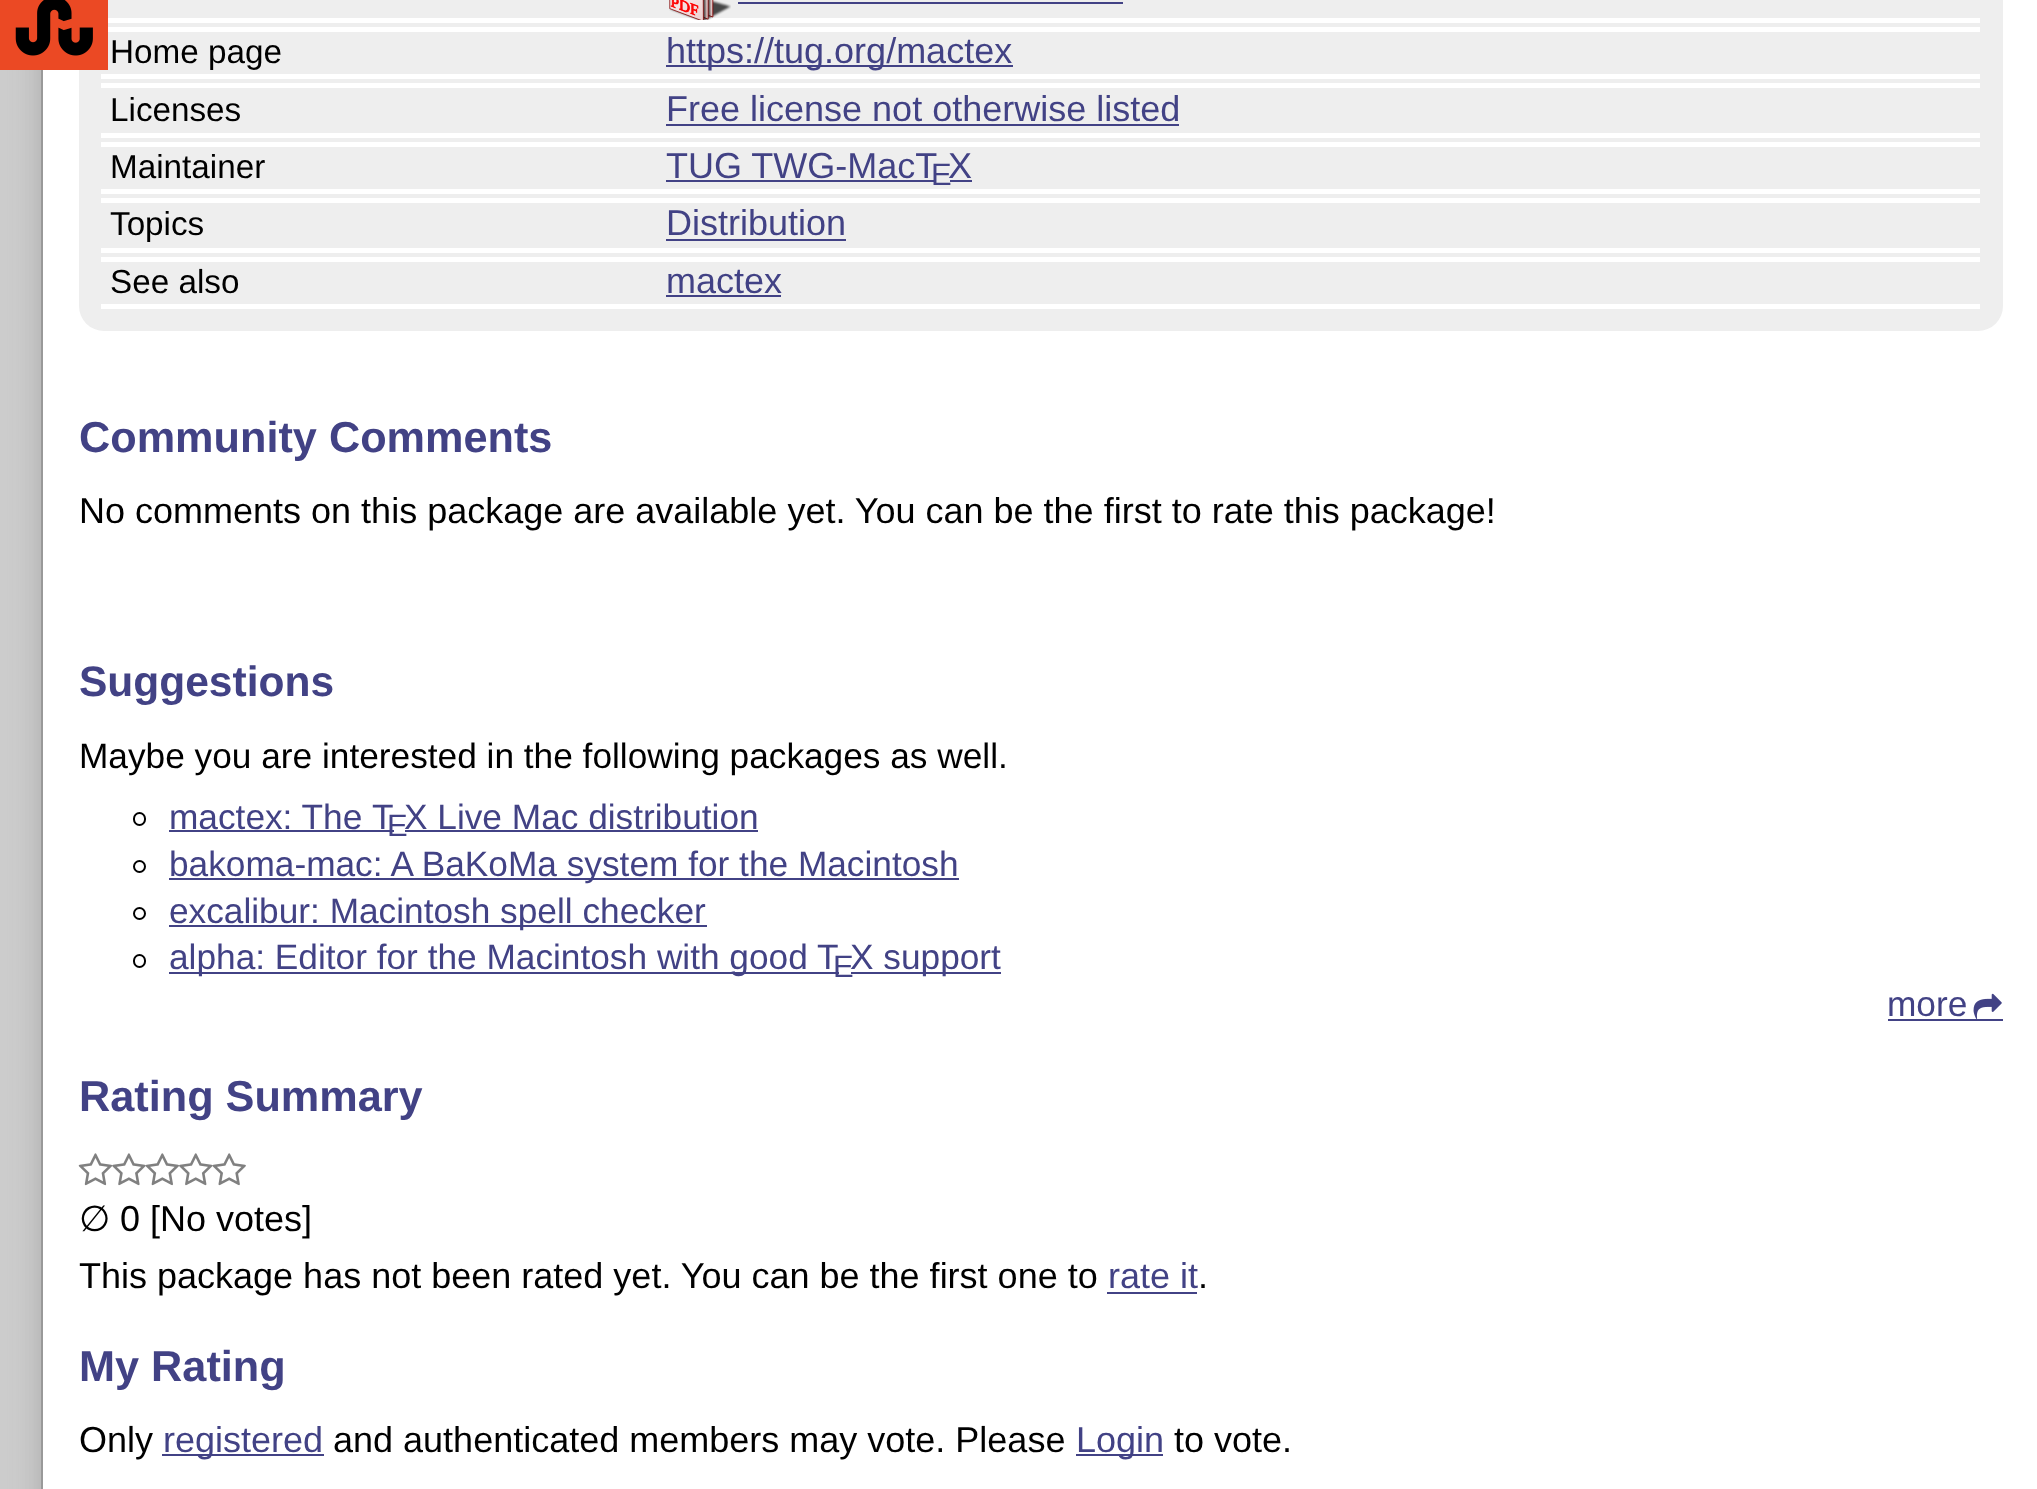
(async () => {
    const canvas = document.querySelector("canvas");
    canvas.width = 2037;
    canvas.height = 1489;
    const context = canvas.getContext("2d");
    context.miterLimit = 4;
    context.fontKerning = "normal";
    function write(s, x, y, font, color) {
        context.font = font;
        context.fillStyle = color;
        context.fillText(s, x, y);
    }
    function block(x, y, w, h, color) {
        context.fillStyle = color;
        context.fillRect(x, y, w, h);
    }
    function card(x, y, w, h, r, color) {
        context.fillStyle = color;
        context.beginPath();
        context.roundRect(x, y, w, h, r);
        context.fill();
    }
    async function photo(src, x, y, w, h) {
        const img = new Image();
        img.src = src;
        await img.decode();
        context.drawImage(img, x, y, w, h);
    }

    block(0, 0, 2037, 1489, "rgb(204, 204, 204)");
    context.fillStyle = "rgb(170, 170, 170)";
    context.filter = "blur(14.5px)";
    context.beginPath();
    context.roundRect(41, -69, 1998, 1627, 25);
    context.fill();
    context.filter = "none";
    block(43, 0, 1994, 1489, "rgb(255, 255, 255)");
    card(79, -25, 1924, 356, 25, "rgb(238, 238, 238)");
    block(101, 18, 1879, 5, "rgb(255, 255, 255)");
    block(101, 27, 1879, 5, "rgb(255, 255, 255)");
    block(0, 0, 108, 70, "rgb(235, 73, 36)");
    await photo("media/1.png", 15, 0, 78, 56);
    block(41, 70, 2, 1419, "rgb(153, 153, 153)");
    await photo("media/2.png", 669, 0, 62, 20);
    block(738, 2, 385, 2, "rgb(66, 66, 133)");
    block(101, 74, 1879, 5, "rgb(255, 255, 255)");
    write("Home page", 110, 63, "33.25px Liberation Sans", "rgb(0, 0, 0)");
    block(666, 65, 347, 2, "rgb(66, 66, 133)");
    write("https://tug.org/mactex", 666, 63, "36px Liberation Sans", "rgb(66, 66, 133)");
    block(101, 83, 1879, 5, "rgb(255, 255, 255)");
    block(101, 133, 1879, 5, "rgb(255, 255, 255)");
    write("Licenses", 110, 121, "33.25px Liberation Sans", "rgb(0, 0, 0)");
    write("Free license not otherwise listed", 666, 121, "36px Liberation Sans", "rgb(66, 66, 133)");
    block(666, 124, 513, 2, "rgb(66, 66, 133)");
    block(101, 142, 1879, 5, "rgb(255, 255, 255)");
    block(101, 189, 1879, 5, "rgb(255, 255, 255)");
    write("Maintainer", 110, 178, "33.25px Liberation Sans", "rgb(0, 0, 0)");
    write("TUG TWG-MacT", 666, 178, "36px Liberation Sans", "rgb(66, 66, 133)");
    block(666, 180, 270, 2, "rgb(66, 66, 133)");
    write("E", 931, 185, "31px Liberation Sans", "rgb(66, 66, 133)");
    write("X", 948, 178, "36px Liberation Sans", "rgb(66, 66, 133)");
    block(950, 180, 22, 2, "rgb(66, 66, 133)");
    block(101, 198, 1879, 5, "rgb(255, 255, 255)");
    block(101, 248, 1879, 5, "rgb(255, 255, 255)");
    write("Topics", 110, 235, "33.25px Liberation Sans", "rgb(0, 0, 0)");
    write("Distribution", 666, 235, "36px Liberation Sans", "rgb(66, 66, 133)");
    block(666, 239, 180, 2, "rgb(66, 66, 133)");
    block(101, 257, 1879, 5, "rgb(255, 255, 255)");
    block(101, 304, 1879, 5, "rgb(255, 255, 255)");
    write("See also", 110, 293, "33.25px Liberation Sans", "rgb(0, 0, 0)");
    write("mactex", 666, 293, "36px Liberation Sans", "rgb(66, 66, 133)");
    block(666, 295, 115, 2, "rgb(66, 66, 133)");
    write("Community Comments", 79, 452, "bold 43.25px Liberation Sans", "rgb(66, 66, 133)");
    write("No comments on this package are available yet. You can be the first to rate this package!", 79, 523, "36px Liberation Sans", "rgb(0, 0, 0)");
    write("Suggestions", 79, 696, "bold 42.5px Liberation Sans", "rgb(66, 66, 133)");
    write("Maybe you are interested in the following packages as well.", 79, 768, "35.25px Liberation Sans", "rgb(0, 0, 0)");
    context.beginPath();
    context.roundRect(134, 813, 11, 12, 5.5);
    context.strokeStyle = "rgb(0, 0, 0)";
    context.lineWidth = 2;
    context.stroke();
    write("mactex: The", 169, 829, "35.25px Liberation Sans", "rgb(66, 66, 133)");
    block(169, 830, 225, 2, "rgb(66, 66, 133)");
    write("T", 372, 829, "35.25px Liberation Sans", "rgb(66, 66, 133)");
    write("E", 387, 836, "31px Liberation Sans", "rgb(66, 66, 133)");
    write("X Live Mac distribution", 404, 829, "35.25px Liberation Sans", "rgb(66, 66, 133)");
    block(405, 830, 353, 2, "rgb(66, 66, 133)");
    context.beginPath();
    context.arc(139.5, 866.5, 5.5, 0, Math.PI * 2);
    context.stroke();
    block(169, 878, 790, 2, "rgb(66, 66, 133)");
    write("bakoma-mac: A BaKoMa system for the Macintosh", 169, 876, "35.25px Liberation Sans", "rgb(66, 66, 133)");
    context.beginPath();
    context.arc(139.5, 913.5, 5.5, 0, Math.PI * 2);
    context.stroke();
    block(169, 925, 538, 2, "rgb(66, 66, 133)");
    write("excalibur: Macintosh spell checker", 169, 923, "35.25px Liberation Sans", "rgb(66, 66, 133)");
    context.beginPath();
    context.roundRect(134, 955, 11, 12, 5.5);
    context.stroke();
    block(169, 972, 670, 2, "rgb(66, 66, 133)");
    write("alpha: Editor for the Macintosh with good", 169, 969, "35.25px Liberation Sans", "rgb(66, 66, 133)");
    write("T", 817, 969, "35.25px Liberation Sans", "rgb(66, 66, 133)");
    write("E", 833, 977, "31px Liberation Sans", "rgb(66, 66, 133)");
    block(851, 972, 150, 2, "rgb(66, 66, 133)");
    write("X support", 850, 969, "35.25px Liberation Sans", "rgb(66, 66, 133)");
    write("more", 1887, 1016, "35.25px Liberation Sans", "rgb(66, 66, 133)");
    block(1888, 1019, 115, 2, "rgb(66, 66, 133)");
    await photo("media/3.png", 1973, 993, 29, 26);
    write("Rating Summary", 79, 1111, "bold 43.25px Liberation Sans", "rgb(66, 66, 133)");
    await photo("media/4.png", 78, 1153, 168, 33);
    write("∅", 79, 1231, "36px DejaVu Sans", "rgb(0, 0, 0)");
    write("0 [No votes]", 120, 1231, "36px Liberation Sans", "rgb(0, 0, 0)");
    write("This package has not been rated yet. You can be the first one to", 79, 1288, "36px Liberation Sans", "rgb(0, 0, 0)");
    write("rate it", 1108, 1288, "36px Liberation Sans", "rgb(66, 66, 133)");
    block(1107, 1292, 90, 2, "rgb(66, 66, 133)");
    write(".", 1198, 1288, "36px Liberation Sans", "rgb(0, 0, 0)");
    write("My Rating", 79, 1381, "bold 43.25px Liberation Sans", "rgb(66, 66, 133)");
    write("Only", 79, 1452, "36px Liberation Sans", "rgb(0, 0, 0)");
    block(162, 1454, 162, 2, "rgb(66, 66, 133)");
    write("registered", 163, 1452, "36px Liberation Sans", "rgb(66, 66, 133)");
    write("and authenticated members may vote. Please", 333, 1452, "36px Liberation Sans", "rgb(0, 0, 0)");
    block(1076, 1454, 87, 2, "rgb(66, 66, 133)");
    write("Login", 1076, 1452, "36px Liberation Sans", "rgb(66, 66, 133)");
    write("to vote.", 1174, 1452, "36px Liberation Sans", "rgb(0, 0, 0)");
})();
